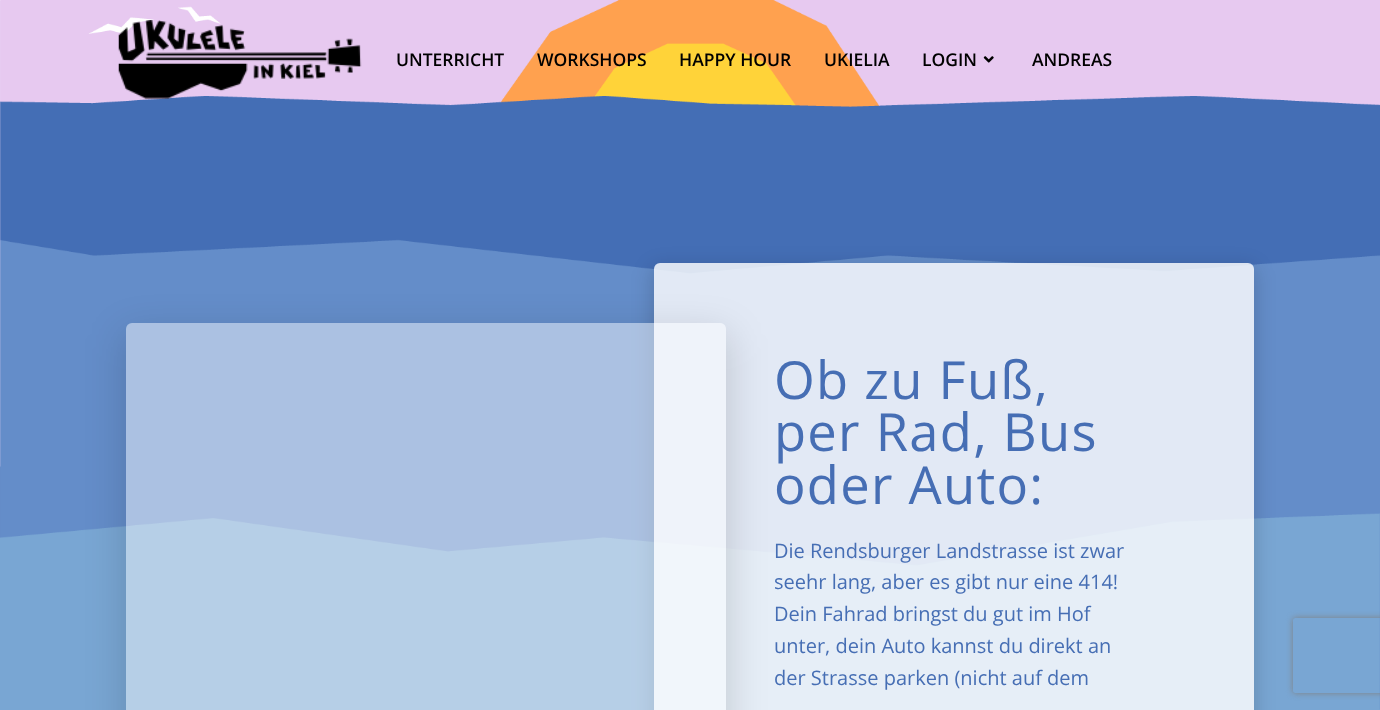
(async () => {
    const canvas = document.querySelector("canvas");
    canvas.width = 1380;
    canvas.height = 710;
    const context = canvas.getContext("2d");
    context.miterLimit = 4;
    context.fontKerning = "normal";
    function write(s, x, y, font, color) {
        context.font = font;
        context.fillStyle = color;
        context.fillText(s, x, y);
    }
    function block(x, y, w, h, color) {
        context.fillStyle = color;
        context.fillRect(x, y, w, h);
    }
    function card(x, y, w, h, r, color) {
        context.fillStyle = color;
        context.beginPath();
        context.roundRect(x, y, w, h, r);
        context.fill();
    }
    async function photo(src, x, y, w, h) {
        const img = new Image();
        img.src = src;
        await img.decode();
        context.drawImage(img, x, y, w, h);
    }

    block(0, 0, 1380, 710, "rgb(255, 255, 255)");
    await photo("media/1.png", 0, 0, 1380, 710);
    await photo("media/4.png", 0, 0, 1380, 710);
    await photo("media/2.png", 118, 20, 244, 79);
    write("UNTERRICHT", 396, 66, "600 17.5px Open Sans", "rgb(0, 0, 0)");
    write("WORKSHOPS", 537, 66, "600 17.5px Open Sans", "rgb(0, 0, 0)");
    write("HAPPY HOUR", 679, 66, "600 17.5px Open Sans", "rgb(0, 0, 0)");
    write("UKIELIA", 824, 66, "600 17.5px Open Sans", "rgb(0, 0, 0)");
    write("LOGIN", 922, 66, "600 17.5px Open Sans", "rgb(0, 0, 0)");
    await photo("media/3.png", 983, 56, 11, 7);
    write("ANDREAS", 1032, 66, "600 17.5px Open Sans", "rgb(0, 0, 0)");
    context.save();
    context.beginPath();
    context.moveTo(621, 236);
    context.lineTo(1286, 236);
    context.lineTo(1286, 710);
    context.lineTo(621, 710);
    context.closePath();
    context.moveTo(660, 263);
    context.lineTo(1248, 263);
    context.bezierCurveTo(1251.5, 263, 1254, 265.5, 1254, 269);
    context.lineTo(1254, 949);
    context.bezierCurveTo(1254, 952.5, 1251.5, 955, 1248, 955);
    context.lineTo(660, 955);
    context.bezierCurveTo(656.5, 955, 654, 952.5, 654, 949);
    context.lineTo(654, 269);
    context.bezierCurveTo(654, 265.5, 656.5, 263, 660, 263);
    context.closePath();
    context.clip("evenodd");
    context.fillStyle = "rgba(0, 0, 0, 0.15)";
    context.filter = "blur(9.5px)";
    context.beginPath();
    context.roundRect(651, 266, 605, 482, 9);
    context.fill();
    context.filter = "none";
    context.restore();
    card(654, 263, 600, 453, 6, "rgba(255, 255, 255, 0.81)");
    context.save();
    context.beginPath();
    context.moveTo(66, 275);
    context.lineTo(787, 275);
    context.lineTo(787, 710);
    context.lineTo(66, 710);
    context.closePath();
    context.moveTo(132, 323);
    context.lineTo(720, 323);
    context.bezierCurveTo(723.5, 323, 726, 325.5, 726, 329);
    context.lineTo(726, 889);
    context.bezierCurveTo(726, 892.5, 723.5, 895, 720, 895);
    context.lineTo(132, 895);
    context.bezierCurveTo(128.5, 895, 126, 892.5, 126, 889);
    context.lineTo(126, 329);
    context.bezierCurveTo(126, 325.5, 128.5, 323, 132, 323);
    context.closePath();
    context.clip("evenodd");
    context.fillStyle = "rgba(0, 0, 0, 0.15)";
    context.filter = "blur(19px)";
    context.beginPath();
    context.roundRect(124, 333, 605, 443, 9);
    context.fill();
    context.filter = "none";
    context.restore();
    card(126, 323, 600, 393, 6, "rgba(255, 255, 255, 0.46)");
    context.letterSpacing = "1.25px";
    write("Ob zu Fuß,", 774, 399, "52.5px Open Sans", "rgb(70, 110, 180)");
    write("per Rad, Bus", 774, 451, "52.5px Open Sans", "rgb(70, 110, 180)");
    write("oder Auto:", 774, 504, "52.5px Open Sans", "rgb(70, 110, 180)");
    context.letterSpacing = "0px";
    write("Die Rendsburger Landstrasse ist zwar", 774, 558, "20px Open Sans", "rgb(70, 110, 180)");
    write("seehr lang, aber es gibt nur eine 414!", 774, 589, "20px Open Sans", "rgb(70, 110, 180)");
    write("Dein Fahrad bringst du gut im Hof", 774, 621, "20px Open Sans", "rgb(70, 110, 180)");
    write("unter, dein Auto kannst du direkt an", 774, 653, "20px Open Sans", "rgb(70, 110, 180)");
    write("der Strasse parken (nicht auf dem", 774, 685, "20px Open Sans", "rgb(70, 110, 180)");
    context.save();
    context.beginPath();
    context.moveTo(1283, 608);
    context.lineTo(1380, 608);
    context.lineTo(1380, 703);
    context.lineTo(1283, 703);
    context.closePath();
    context.moveTo(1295.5, 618);
    context.lineTo(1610.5, 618);
    context.bezierCurveTo(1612, 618, 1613, 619, 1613, 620.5);
    context.lineTo(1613, 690.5);
    context.bezierCurveTo(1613, 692, 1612, 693, 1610.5, 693);
    context.lineTo(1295.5, 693);
    context.bezierCurveTo(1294, 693, 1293, 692, 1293, 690.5);
    context.lineTo(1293, 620.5);
    context.bezierCurveTo(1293, 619, 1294, 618, 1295.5, 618);
    context.closePath();
    context.clip("evenodd");
    context.fillStyle = "rgb(128, 128, 128)";
    context.filter = "blur(3px)";
    context.beginPath();
    context.roundRect(1293, 618, 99, 75, 2.5);
    context.fill();
    context.filter = "none";
    context.restore();
})();
